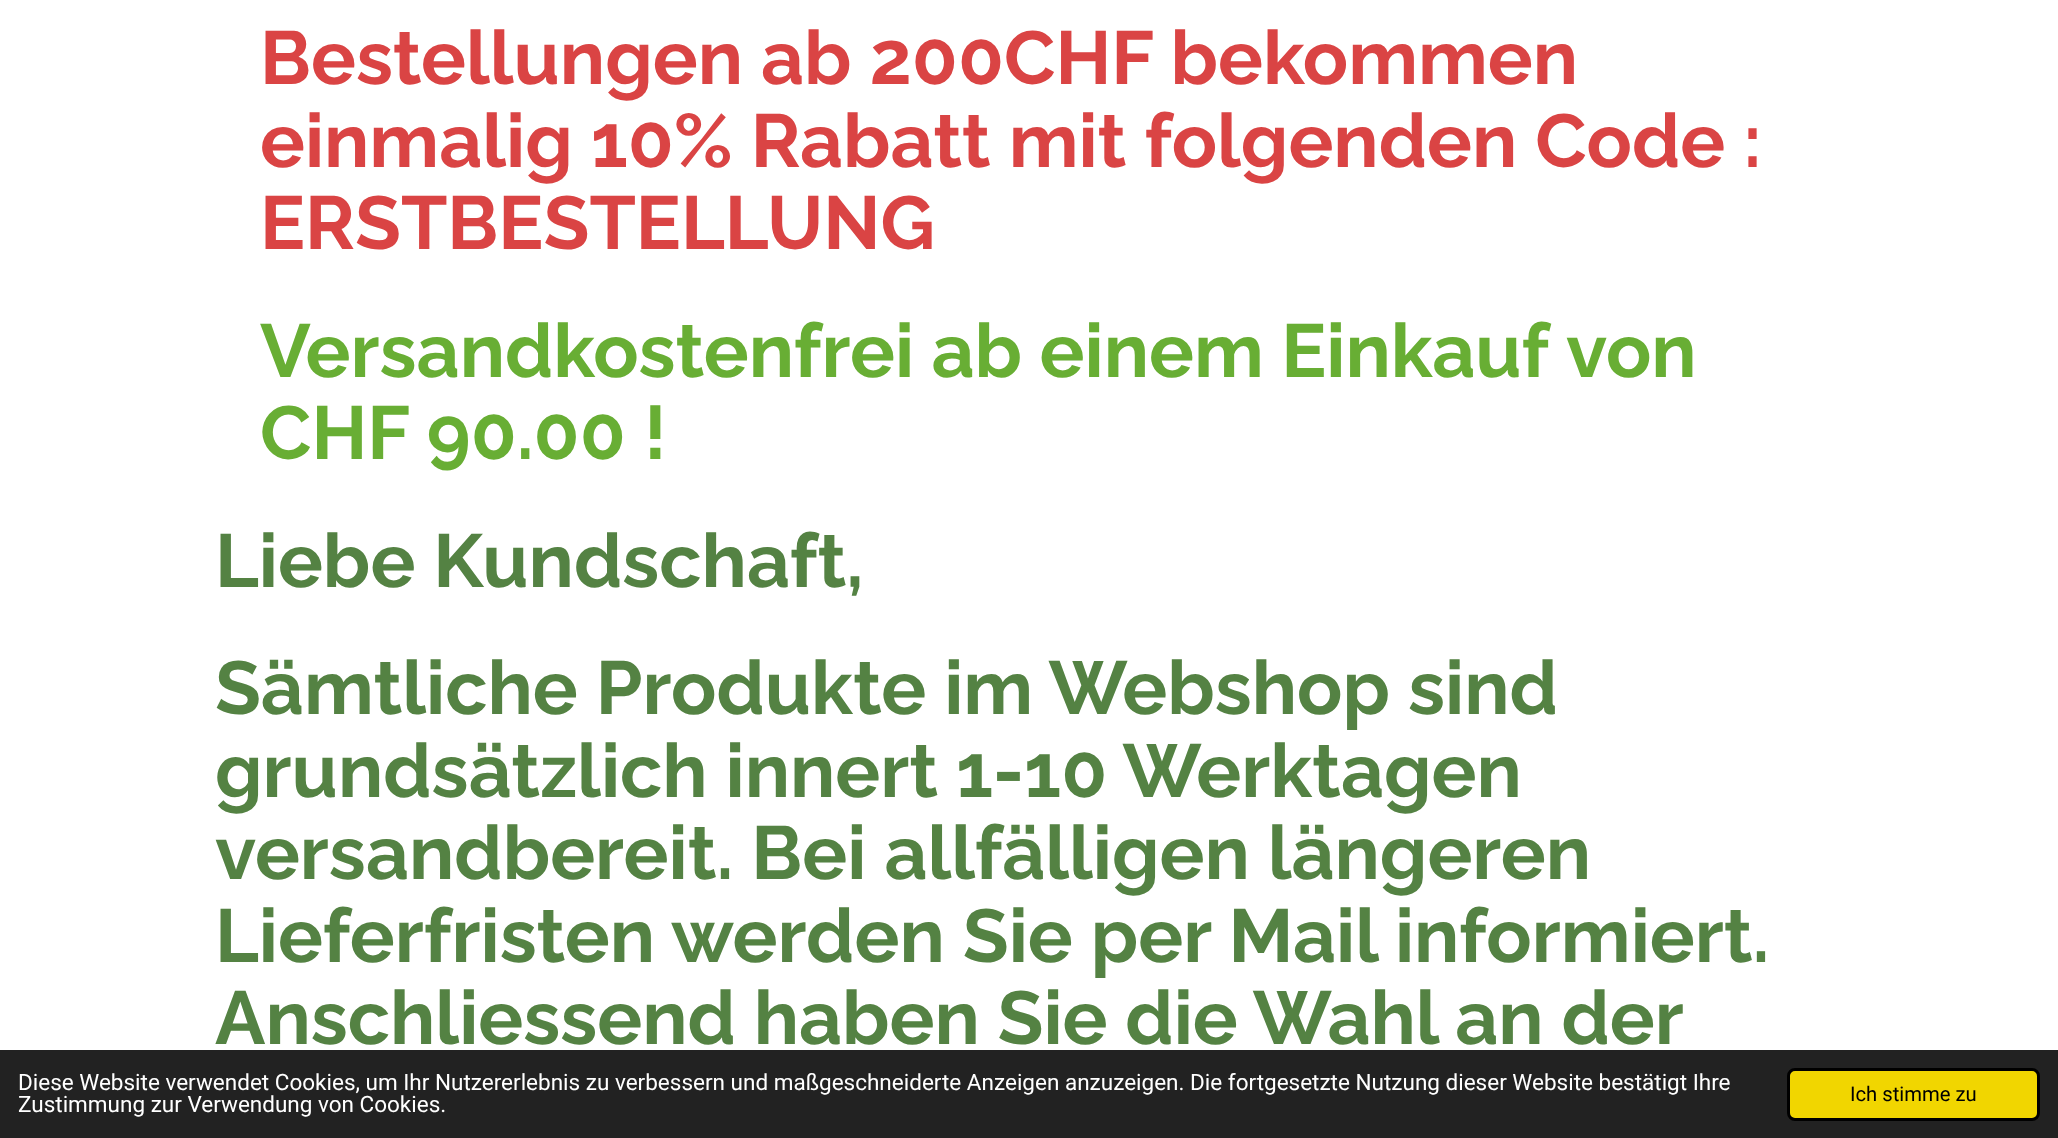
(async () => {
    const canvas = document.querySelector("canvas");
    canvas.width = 2058;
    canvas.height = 1138;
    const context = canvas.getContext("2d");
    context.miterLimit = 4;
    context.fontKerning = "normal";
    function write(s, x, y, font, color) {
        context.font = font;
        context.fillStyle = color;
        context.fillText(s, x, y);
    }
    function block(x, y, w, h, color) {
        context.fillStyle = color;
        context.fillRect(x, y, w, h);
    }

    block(0, 0, 2058, 1138, "rgb(255, 255, 255)");
    write("Bestellungen ab 200CHF bekommen", 260, 84, "bold 75px Raleway", "rgb(218, 68, 68)");
    write("einmalig 10% Rabatt mit folgenden Code :", 260, 167, "bold 75px Raleway", "rgb(218, 68, 68)");
    write("ERSTBESTELLUNG", 260, 249, "bold 75px Raleway", "rgb(218, 68, 68)");
    context.wordSpacing = "-0.5px";
    write("Versandkostenfrei ab einem Einkauf", 260, 377, "bold 75px Raleway", "rgb(104, 174, 52)");
    context.wordSpacing = "0px";
    write("von", 1566, 377, "bold 75px Raleway", "rgb(104, 174, 52)");
    write("CHF 90.00 !", 260, 459, "bold 75px Raleway", "rgb(104, 174, 52)");
    write("Liebe Kundschaft,", 215, 587, "bold 75px Raleway", "rgb(84, 130, 67)");
    write("Sämtliche Produkte im Webshop sind", 215, 714, "bold 75px Raleway", "rgb(84, 130, 67)");
    write("grundsätzlich innert 1-10 Werktagen", 215, 797, "bold 75px Raleway", "rgb(84, 130, 67)");
    write("versandbereit. Bei allfälligen längeren", 215, 879, "bold 75px Raleway", "rgb(84, 130, 67)");
    write("Lieferfristen werden Sie per Mail informiert.", 215, 962, "bold 75px Raleway", "rgb(84, 130, 67)");
    context.wordSpacing = "-0.25px";
    write("Anschliessend haben Sie die Wahl an der", 215, 1044, "bold 75px Raleway", "rgb(84, 130, 67)");
    block(0, 1050, 2058, 88, "rgb(34, 34, 34)");
    context.wordSpacing = "0px";
    write("Diese Website verwendet Cookies, um Ihr Nutzererlebnis zu verbessern und maßgeschneiderte Anzeigen anzuzeigen. Die fortgesetzte Nutzung dieser Website bestätigt Ihre", 18, 1090, "22.5px Roboto", "rgb(255, 255, 255)");
    write("Zustimmung zur Verwendung von Cookies.", 18, 1112, "22.5px Roboto", "rgb(255, 255, 255)");
    context.fillStyle = "rgb(241, 214, 0)";
    context.beginPath();
    context.roundRect(1788.5, 1069.5, 250, 50, 6.5);
    context.fill();
    context.strokeStyle = "rgb(0, 0, 0)";
    context.lineWidth = 3;
    context.stroke();
    write("Ich stimme zu", 1850, 1101, "20.25px Roboto", "rgb(0, 0, 0)");
})();
